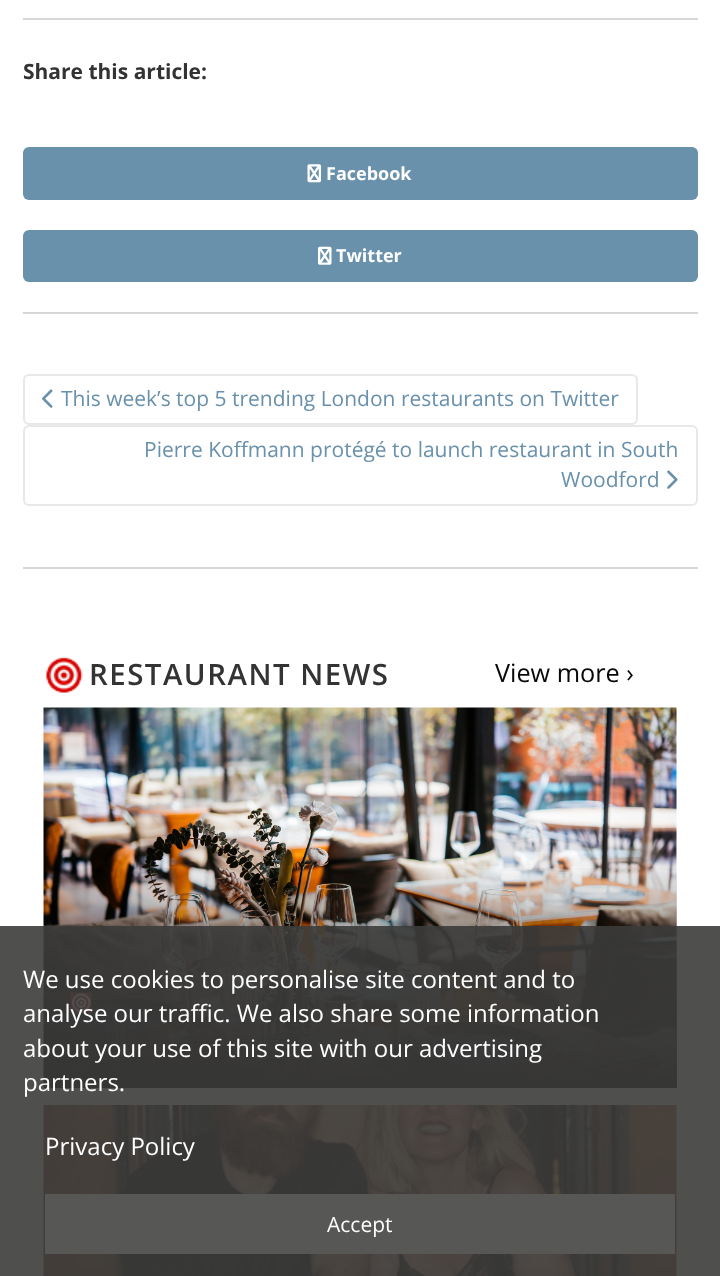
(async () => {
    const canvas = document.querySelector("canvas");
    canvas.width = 720;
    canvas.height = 1276;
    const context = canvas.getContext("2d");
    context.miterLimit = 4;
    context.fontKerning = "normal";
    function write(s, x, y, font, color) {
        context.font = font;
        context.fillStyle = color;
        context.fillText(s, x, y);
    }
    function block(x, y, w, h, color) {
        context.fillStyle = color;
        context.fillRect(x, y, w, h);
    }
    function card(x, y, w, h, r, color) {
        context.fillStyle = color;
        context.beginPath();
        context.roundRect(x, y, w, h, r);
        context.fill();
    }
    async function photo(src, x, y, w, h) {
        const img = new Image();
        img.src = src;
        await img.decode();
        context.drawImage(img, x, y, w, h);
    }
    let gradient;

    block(0, 0, 720, 1276, "rgb(255, 255, 255)");
    block(23, 18, 675, 2, "rgb(215, 215, 215)");
    write("Share this article:", 23, 79, "bold 21px Open Sans", "rgb(51, 51, 51)");
    card(23, 147, 675, 53, 6, "rgb(105, 145, 172)");
    await photo("media/1.png", 307, 164, 14, 19);
    write("Facebook", 326, 180, "bold 18px Open Sans", "rgb(255, 255, 255)");
    card(23, 230, 675, 52, 6, "rgb(105, 145, 172)");
    await photo("media/2.png", 318, 246, 14, 19);
    write("Twitter", 336, 262, "bold 18px Open Sans", "rgb(255, 255, 255)");
    block(23, 312, 675, 2, "rgb(215, 215, 215)");
    context.beginPath();
    context.roundRect(24, 375, 613, 49, 5);
    context.strokeStyle = "rgb(232, 232, 232)";
    context.lineWidth = 2;
    context.stroke();
    await photo("media/3.png", 42, 389, 11, 19);
    write("This week’s top 5 trending London restaurants on Twitter", 61, 406, "21px Open Sans", "rgb(105, 145, 172)");
    context.beginPath();
    context.roundRect(24, 426, 673, 79, 5);
    context.stroke();
    write("Pierre Koffmann protégé to launch restaurant in South", 144, 457, "21px Open Sans", "rgb(105, 145, 172)");
    write("Woodford", 561, 487, "21px Open Sans", "rgb(105, 145, 172)");
    await photo("media/4.png", 667, 470, 11, 19);
    block(23, 567, 675, 2, "rgb(215, 215, 215)");
    await photo("media/5.png", 46, 657, 37, 36);
    context.letterSpacing = "1.5px";
    write("RESTAURANT NEWS", 89, 685, "600 29.4px Open Sans", "rgb(51, 51, 51)");
    context.letterSpacing = "0px";
    write("View more ›", 495, 682, "25.25px Open Sans", "rgb(8, 8, 8)");
    await photo("media/6.png", 43, 707, 634, 380);
    gradient = context.createLinearGradient(360, 863, 360, 1088);
    gradient.addColorStop(0, "rgba(0, 0, 0, 0)");
    gradient.addColorStop(1, "rgb(0, 0, 0)");
    context.fillStyle = gradient;
    context.fillRect(44, 868, 633, 220);
    await photo("media/7.png", 70, 992, 22, 22);
    await photo("media/8.png", 43, 1105, 634, 171);
    gradient = context.createLinearGradient(360, 1262, 360, 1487);
    gradient.addColorStop(0, "rgba(0, 0, 0, 0)");
    gradient.addColorStop(1, "rgb(0, 0, 0)");
    context.fillStyle = gradient;
    context.fillRect(44, 1267, 633, 9);
    block(0, 926, 720, 350, "rgba(60, 60, 59, 0.9)");
    write("We use cookies to personalise site content and to", 23, 988, "24px Open Sans", "rgb(255, 255, 255)");
    write("analyse our traffic. We also share some information", 23, 1022, "24px Open Sans", "rgb(255, 255, 255)");
    write("about your use of this site with our advertising", 23, 1057, "24px Open Sans", "rgb(255, 255, 255)");
    write("partners.", 23, 1091, "24px Open Sans", "rgb(255, 255, 255)");
    write("Privacy Policy", 45, 1155, "24px Open Sans", "rgb(255, 255, 255)");
    block(45, 1194, 630, 60, "rgb(87, 87, 85)");
    write("Accept", 327, 1232, "21px Open Sans", "rgb(255, 255, 255)");
})();
